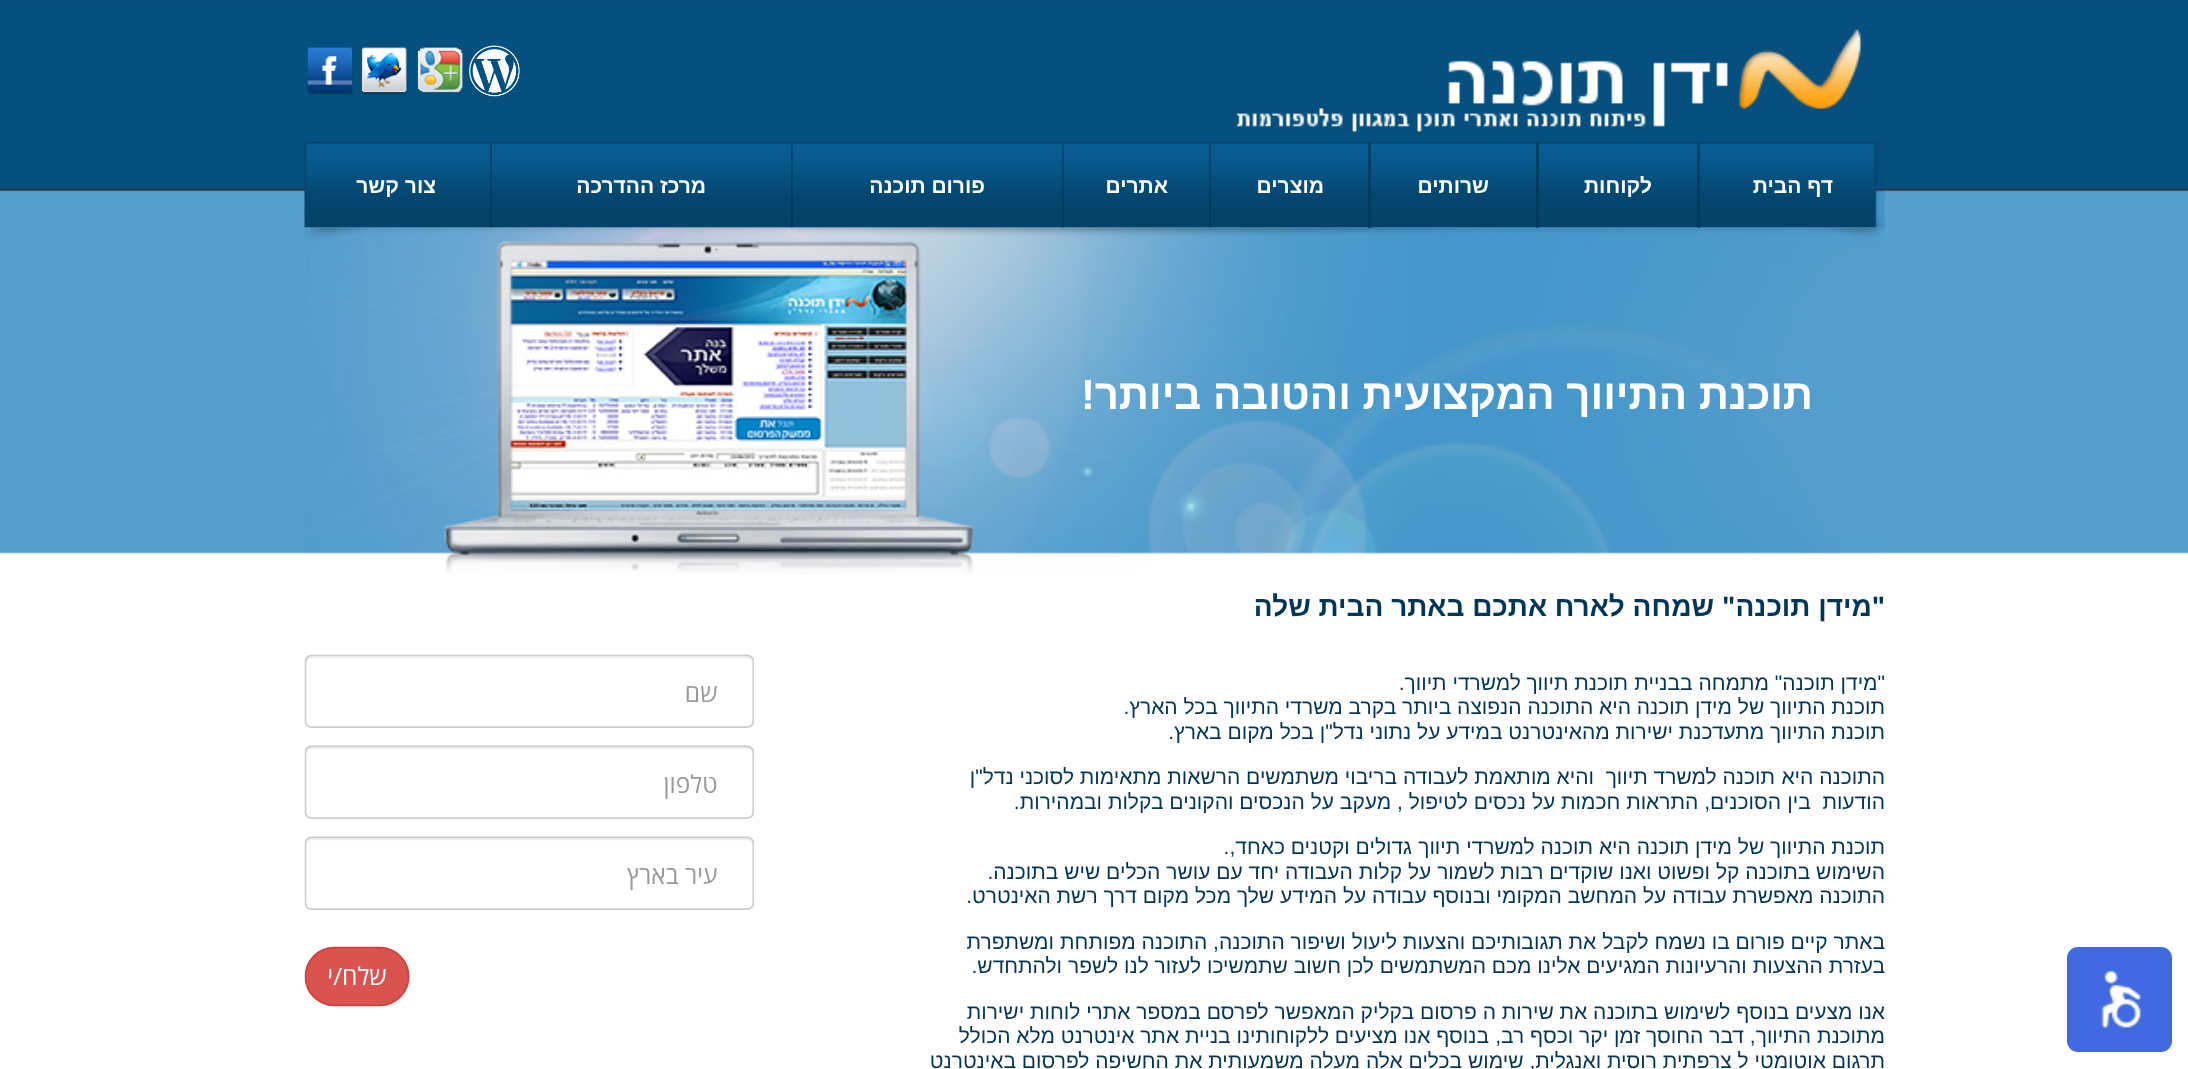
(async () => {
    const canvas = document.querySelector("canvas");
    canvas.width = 2188;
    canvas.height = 1069;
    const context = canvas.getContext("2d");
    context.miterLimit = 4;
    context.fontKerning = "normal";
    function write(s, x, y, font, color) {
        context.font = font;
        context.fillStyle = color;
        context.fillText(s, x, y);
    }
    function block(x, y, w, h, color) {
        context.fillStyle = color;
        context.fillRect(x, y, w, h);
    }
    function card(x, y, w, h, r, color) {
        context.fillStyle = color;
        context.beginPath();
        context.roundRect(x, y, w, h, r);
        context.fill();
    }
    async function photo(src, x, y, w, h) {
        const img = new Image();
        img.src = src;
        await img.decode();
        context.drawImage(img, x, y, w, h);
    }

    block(0, 0, 2188, 1069, "rgb(255, 255, 255)");
    await photo("media/1.png", 0, 0, 2188, 554);
    await photo("media/2.png", 1236, 29, 627, 103);
    await photo("media/3.png", 469, 45, 51, 52);
    await photo("media/4.png", 417, 47, 46, 46);
    await photo("media/5.png", 361, 47, 46, 48);
    await photo("media/6.png", 307, 47, 46, 48);
    await photo("media/7.png", 304, 141, 1581, 87);
    context.direction = "rtl";
    write("דף הבית", 1833, 193, "bold 21px Liberation Sans", "rgb(255, 255, 255)");
    await photo("media/12.png", 304, 227, 1581, 347);
    block(1697, 143, 3, 85, "rgba(2, 51, 84, 0.63)");
    write("לקוחות", 1652, 193, "bold 21px Liberation Sans", "rgb(255, 255, 255)");
    block(1536, 143, 3, 85, "rgba(2, 51, 84, 0.63)");
    write("שרותים", 1489, 193, "bold 21px Liberation Sans", "rgb(255, 255, 255)");
    block(1368, 143, 3, 85, "rgba(2, 51, 84, 0.63)");
    write("מוצרים", 1324, 193, "bold 21px Liberation Sans", "rgb(255, 255, 255)");
    await photo("media/8.png", 1209, 143, 2, 85);
    write("אתרים", 1168, 193, "bold 21px Liberation Sans", "rgb(255, 255, 255)");
    await photo("media/9.png", 1062, 143, 2, 85);
    write("פורום תוכנה", 985, 193, "bold 21px Liberation Sans", "rgb(255, 255, 255)");
    await photo("media/10.png", 791, 143, 2, 85);
    write("מרכז ההדרכה", 706, 193, "bold 21px Liberation Sans", "rgb(255, 255, 255)");
    await photo("media/11.png", 490, 143, 2, 85);
    write("צור קשר", 436, 193, "bold 21px Liberation Sans", "rgb(255, 255, 255)");
    write("תוכנת התיווך המקצועית והטובה ביותר", 1813, 409, "bold 42px Liberation Sans", "rgb(255, 255, 255)");
    context.direction = "ltr";
    write("!", 1081, 409, "bold 42px Liberation Sans", "rgb(255, 255, 255)");
    card(2067, 947, 105, 105, 11, "rgb(65, 105, 225)");
    await photo("media/13.png", 2101, 970, 40, 58);
    context.direction = "rtl";
    write("\"מידן תוכנה\"", 1885, 616, "bold 28px Liberation Sans", "rgb(3, 54, 86)");
    write("שמחה לארח אתכם באתר הבית שלה", 1714, 616, "bold 28px Liberation Sans", "rgb(3, 54, 86)");
    write("\"מידן תוכנה\" מתמחה בבניית", 1885, 690, "21px Liberation Sans", "rgb(3, 54, 86)");
    write("תוכנת תיווך", 1628, 690, "21px Liberation Sans", "rgb(3, 54, 86)");
    write("למשרדי תיווך.", 1521, 690, "21px Liberation Sans", "rgb(3, 54, 86)");
    write("תוכנת התיווך של מידן תוכנה", 1885, 714, "21px Liberation Sans", "rgb(3, 54, 86)");
    write("היא התוכנה הנפוצה ביותר בקרב משרדי התיווך בכל הארץ.", 1631, 714, "21px Liberation Sans", "rgb(3, 54, 86)");
    write("תוכנת התיווך מתעדכנת ישירות מהאינטרנט במידע על נתוני נדל\"ן בכל מקום בארץ.", 1885, 739, "21px Liberation Sans", "rgb(3, 54, 86)");
    write("התוכנה היא", 1885, 784, "21px Liberation Sans", "rgb(3, 54, 86)");
    write("תוכנה למשרד תיווך", 1775, 784, "21px Liberation Sans", "rgb(3, 54, 86)");
    write("והיא מותאמת לעבודה בריבוי משתמשים הרשאות מתאימות לסוכני נדל\"ן", 1594, 784, "21px Liberation Sans", "rgb(3, 54, 86)");
    write("הודעות  בין", 1885, 809, "21px Liberation Sans", "rgb(3, 54, 86)");
    write("הסוכנים, התראות חכמות על נכסים לטיפול , מעקב על הנכסים והקונים בקלות ובמהירות.", 1781, 809, "21px Liberation Sans", "rgb(3, 54, 86)");
    write("תוכנת התיווך של מידן תוכנה היא", 1885, 854, "21px Liberation Sans", "rgb(3, 54, 86)");
    write("תוכנה למשרדי תיווך", 1593, 854, "21px Liberation Sans", "rgb(3, 54, 86)");
    write("גדולים וקטנים כאחד,.", 1412, 854, "21px Liberation Sans", "rgb(3, 54, 86)");
    write("השימוש בתוכנה קל ופשוט ואנו שוקדים רבות לשמור על קלות העבודה יחד עם עושר הכלים שיש בתוכנה.", 1885, 879, "21px Liberation Sans", "rgb(3, 54, 86)");
    write("התוכנה מאפשרת עבודה על המחשב המקומי ובנוסף עבודה על המידע שלך מכל מקום דרך רשת האינטרט.", 1885, 903, "21px Liberation Sans", "rgb(3, 54, 86)");
    write("באתר קיים פורום בו נשמח לקבל את תגובותיכם והצעות ליעול ושיפור התוכנה, התוכנה מפותחת", 1885, 949, "21px Liberation Sans", "rgb(3, 54, 86)");
    write("ומשתפרת", 1054, 949, "21px Liberation Sans", "rgb(3, 54, 86)");
    write("בעזרת ההצעות והרעיונות המגיעים אלינו מכם המשתמשים לכן חשוב שתמשיכו לעזור לנו לשפר ולהתחדש.", 1885, 973, "21px Liberation Sans", "rgb(3, 54, 86)");
    write("אנו מצעים בנוסף לשימוש בתוכנה את שירות ה פרסום בקליק המאפשר לפרסם במספר אתרי לוחות ישירות", 1885, 1019, "21px Liberation Sans", "rgb(3, 54, 86)");
    write("מתוכנת התיווך, דבר החוסך זמן יקר וכסף רב,", 1885, 1043, "21px Liberation Sans", "rgb(3, 54, 86)");
    write("בנוסף אנו מציעים ללקוחותינו בניית אתר אינטרנט מלא הכולל", 1489, 1043, "21px Liberation Sans", "rgb(3, 54, 86)");
    write("תרגום אוטומטי ל צרפתית רוסית ואנגלית, שימוש בכלים אלה", 1885, 1068, "21px Liberation Sans", "rgb(3, 54, 86)");
    write("מעלה משמעותית את החשיפה לפרסום באינטרנט", 1360, 1068, "21px Liberation Sans", "rgb(3, 54, 86)");
    await photo("media/14.png", 304, 654, 450, 353);
})();
